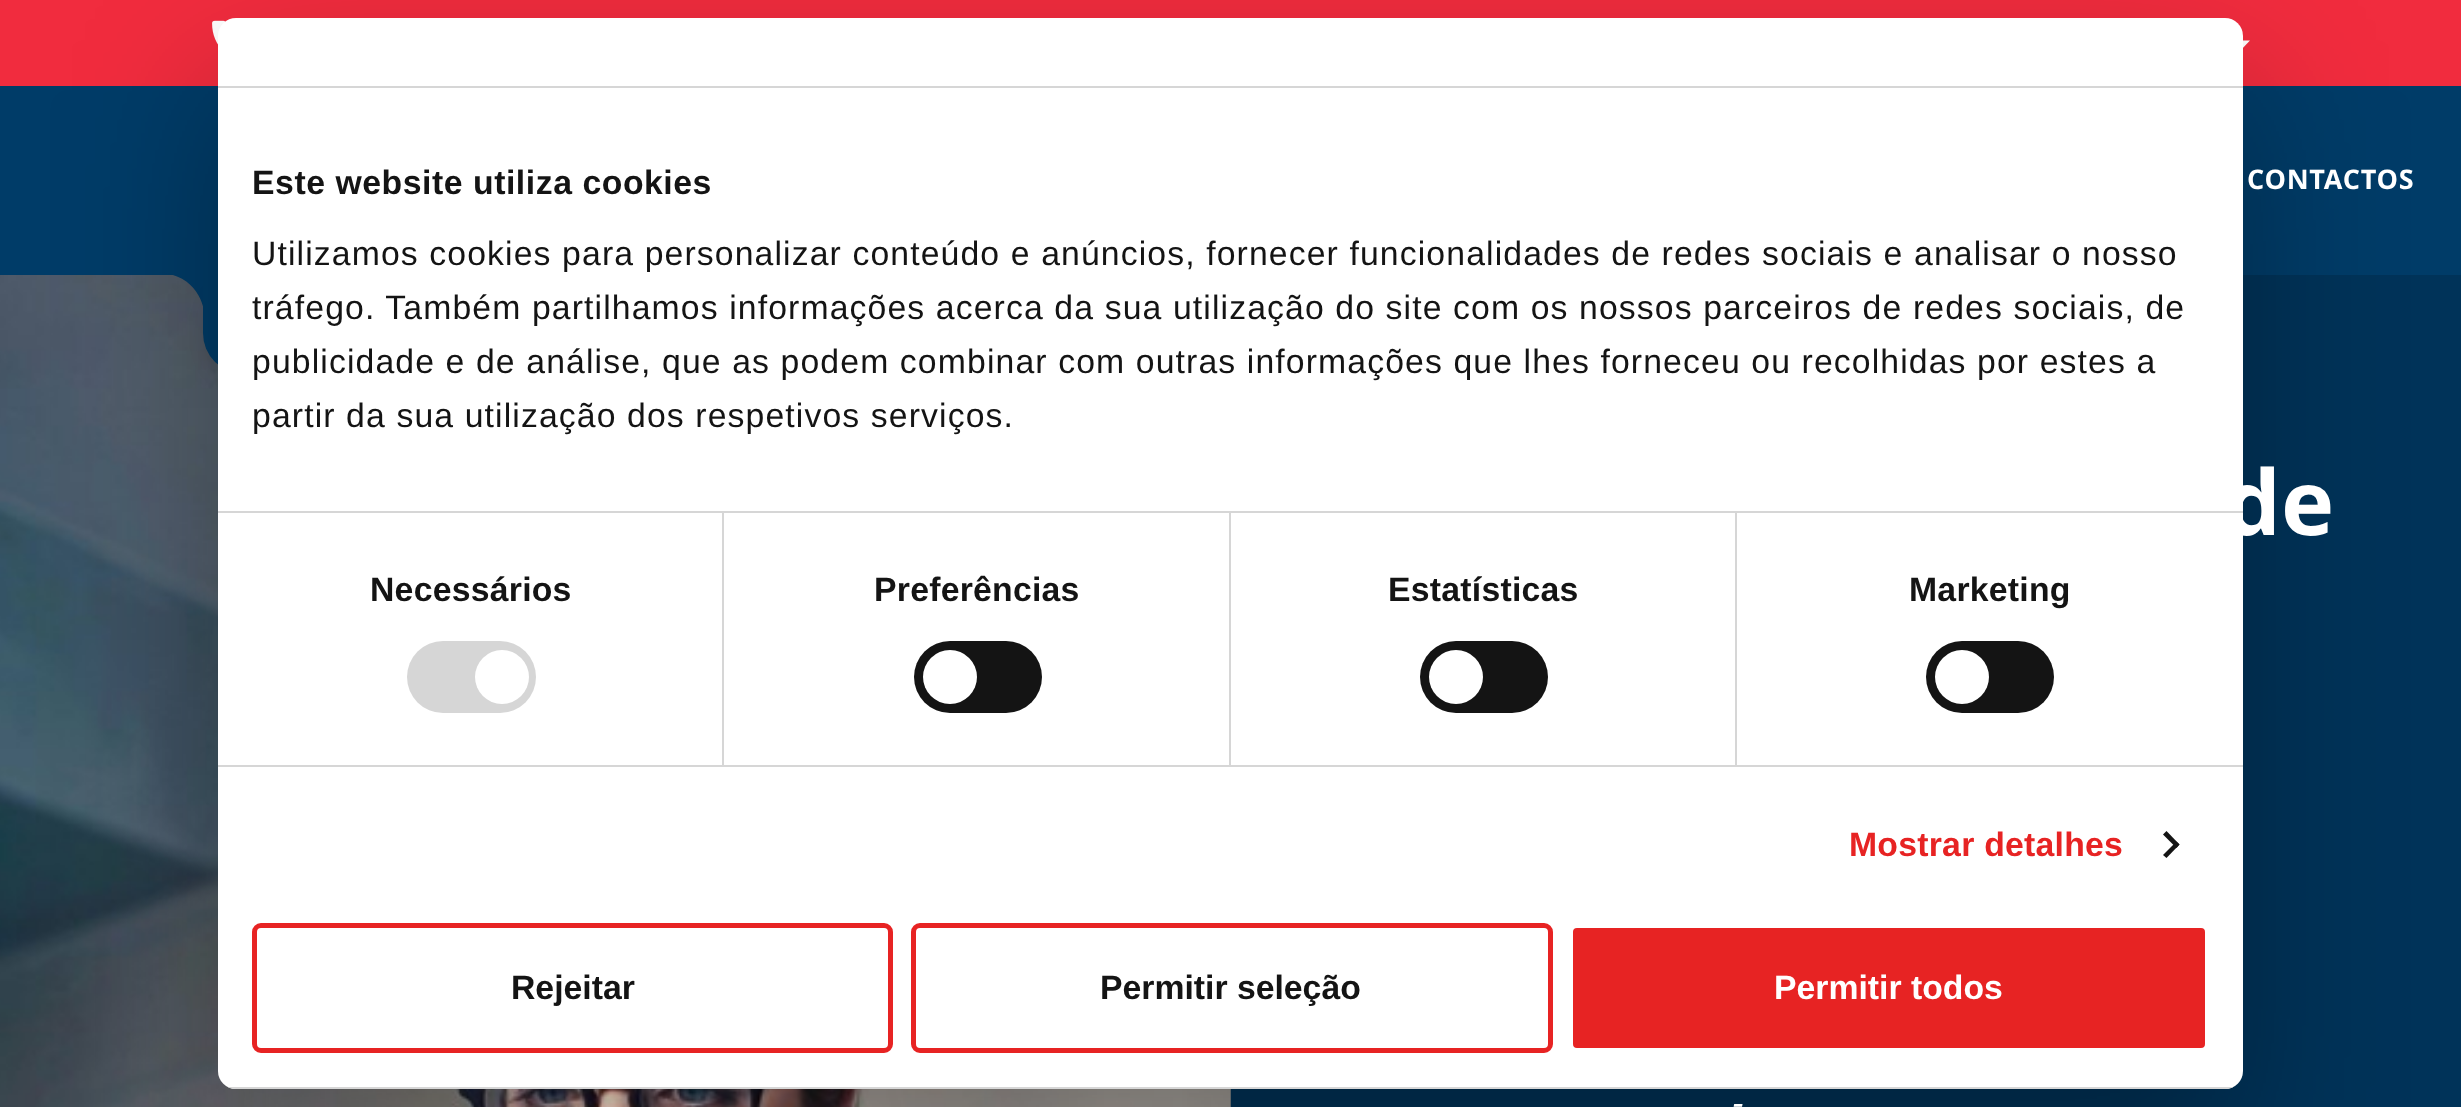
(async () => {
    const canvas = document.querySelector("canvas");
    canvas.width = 2461;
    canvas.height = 1107;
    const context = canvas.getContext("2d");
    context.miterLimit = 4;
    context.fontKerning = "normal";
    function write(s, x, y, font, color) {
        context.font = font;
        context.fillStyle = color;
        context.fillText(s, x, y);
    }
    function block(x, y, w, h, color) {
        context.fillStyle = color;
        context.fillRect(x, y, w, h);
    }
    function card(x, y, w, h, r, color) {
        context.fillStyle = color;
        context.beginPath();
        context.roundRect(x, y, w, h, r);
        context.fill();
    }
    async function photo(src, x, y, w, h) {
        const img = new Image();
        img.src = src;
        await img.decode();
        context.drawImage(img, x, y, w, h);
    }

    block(0, 0, 2461, 1107, "rgb(0, 51, 89)");
    block(0, 0, 2461, 86, "rgb(241, 44, 62)");
    await photo("media/1.png", 212, 20, 14, 25);
    context.fillStyle = "rgb(255, 255, 255)";
    context.beginPath();
    context.moveTo(2227.5, 40.5);
    context.lineTo(2250, 40.5);
    context.lineTo(2239, 52);
    context.closePath();
    context.fill();
    block(0, 86, 2461, 189, "rgb(0, 60, 104)");
    await photo("media/2.png", 0, 275, 1231, 832);
    context.save();
    context.beginPath();
    context.rect(158, 272, 47, 43);
    context.clip();
    context.beginPath();
    context.moveTo(153, 272);
    context.lineTo(205, 272);
    context.lineTo(205, 317);
    context.bezierCurveTo(205, 317, 204, 272, 153, 272);
    context.closePath();
    context.fill();
    context.restore();
    context.fillStyle = "rgba(0, 0, 0, 0.2)";
    context.filter = "blur(11px)";
    context.beginPath();
    context.roundRect(212, 290, 391, 84, 32);
    context.fill();
    context.filter = "none";
    context.fillStyle = "rgb(0, 60, 104)";
    context.beginPath();
    context.roundRect(203, 272, 409, 102, [0, 0, 41, 41]);
    context.fill();
    context.fillStyle = "rgba(0, 0, 0, 0.3)";
    context.filter = "blur(76.5px)";
    context.beginPath();
    context.roundRect(218, 90, 2025, 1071, 18);
    context.fill();
    context.filter = "none";
    card(218, 18, 2025, 1071, 18, "rgb(255, 255, 255)");
    block(218, 86, 2025, 2, "rgb(214, 214, 214)");
    write("de", 2224, 535, "bold 90px Noto Sans", "rgb(255, 255, 255)");
    block(218, 511, 2025, 2, "rgb(214, 214, 214)");
    context.letterSpacing = "0.55px";
    write("Este website utiliza cookies", 252, 194, "bold 33.75px Liberation Sans", "rgb(20, 20, 20)");
    context.letterSpacing = "1.12px";
    write("Utilizamos cookies para personalizar conteúdo e anúncios, fornecer funcionalidades de redes sociais e analisar o nosso", 252, 265, "33.75px Liberation Sans", "rgb(20, 20, 20)");
    write("tráfego. Também partilhamos informações acerca da sua utilização do site com os nossos parceiros de redes sociais, de", 252, 319, "33.75px Liberation Sans", "rgb(20, 20, 20)");
    write("publicidade e de análise, que as podem combinar com outras informações que lhes forneceu ou recolhidas por estes a", 252, 373, "33.75px Liberation Sans", "rgb(20, 20, 20)");
    write("partir da sua utilização dos respetivos serviços.", 252, 427, "33.75px Liberation Sans", "rgb(20, 20, 20)");
    block(218, 765, 2025, 2, "rgb(214, 214, 214)");
    block(722, 513, 2, 252, "rgb(214, 214, 214)");
    context.letterSpacing = "0.25px";
    write("Necessários", 370, 601, "bold 33.75px Liberation Sans", "rgb(20, 20, 20)");
    card(407, 641, 129, 72, 36, "rgb(214, 214, 214)");
    context.fillStyle = "rgb(255, 255, 255)";
    context.beginPath();
    context.arc(502, 677, 27, 0, Math.PI * 2);
    context.fill();
    block(1229, 513, 2, 252, "rgb(214, 214, 214)");
    write("Preferências", 874, 601, "bold 33.75px Liberation Sans", "rgb(20, 20, 20)");
    card(914, 641, 128, 72, 36, "rgb(20, 20, 20)");
    context.fillStyle = "rgb(255, 255, 255)";
    context.beginPath();
    context.arc(950, 677, 27, 0, Math.PI * 2);
    context.fill();
    block(1735, 513, 2, 252, "rgb(214, 214, 214)");
    write("Estatísticas", 1388, 601, "bold 33.75px Liberation Sans", "rgb(20, 20, 20)");
    card(1420, 641, 128, 72, 36, "rgb(20, 20, 20)");
    context.fillStyle = "rgb(255, 255, 255)";
    context.beginPath();
    context.arc(1456, 677, 27, 0, Math.PI * 2);
    context.fill();
    write("Marketing", 1909, 601, "bold 33.75px Liberation Sans", "rgb(20, 20, 20)");
    card(1926, 641, 128, 72, 36, "rgb(20, 20, 20)");
    context.fillStyle = "rgb(255, 255, 255)";
    context.beginPath();
    context.arc(1962, 677, 27, 0, Math.PI * 2);
    context.fill();
    write("Mostrar detalhes", 1849, 856, "bold 33.75px Liberation Sans", "rgb(231, 35, 35)");
    context.fillStyle = "rgb(20, 20, 20)";
    context.beginPath();
    context.moveTo(2166.5, 831);
    context.lineTo(2179.5, 844.5);
    context.lineTo(2176.5, 848);
    context.lineTo(2163, 834.5);
    context.closePath();
    context.fill();
    context.beginPath();
    context.moveTo(2176.5, 841.5);
    context.lineTo(2179.5, 844.5);
    context.lineTo(2166.5, 858);
    context.lineTo(2163, 855);
    context.closePath();
    context.fill();
    context.save();
    context.beginPath();
    context.roundRect(218, 18, 2025, 1071, 18);
    context.clip();
    block(228, 1087, 2005, 2, "rgb(214, 214, 214)");
    context.restore();
    context.beginPath();
    context.roundRect(254.5, 925.5, 636, 125, 6.5);
    context.strokeStyle = "rgb(231, 35, 35)";
    context.lineWidth = 5;
    context.stroke();
    context.letterSpacing = "0px";
    write("Rejeitar", 511, 999, "bold 33.75px Liberation Sans", "rgb(20, 20, 20)");
    context.beginPath();
    context.roundRect(913.5, 925.5, 637, 125, 6.5);
    context.stroke();
    write("Permitir seleção", 1100, 999, "bold 33.75px Liberation Sans", "rgb(20, 20, 20)");
    context.fillStyle = "rgb(231, 35, 35)";
    context.beginPath();
    context.roundRect(1570.5, 925.5, 637, 125, 6.5);
    context.fill();
    context.strokeStyle = "rgb(255, 255, 255)";
    context.stroke();
    write("Permitir todos", 1774, 999, "bold 33.75px Liberation Sans", "rgb(255, 255, 255)");
    context.letterSpacing = "0.75px";
    write("CONTACTOS", 2247, 189, "bold 27px Noto Sans", "rgb(255, 255, 255)");
    context.letterSpacing = "0px";
    write("-", 1733, 1113, "italic bold 32px Liberation Serif", "rgb(255, 255, 255)");
})();
